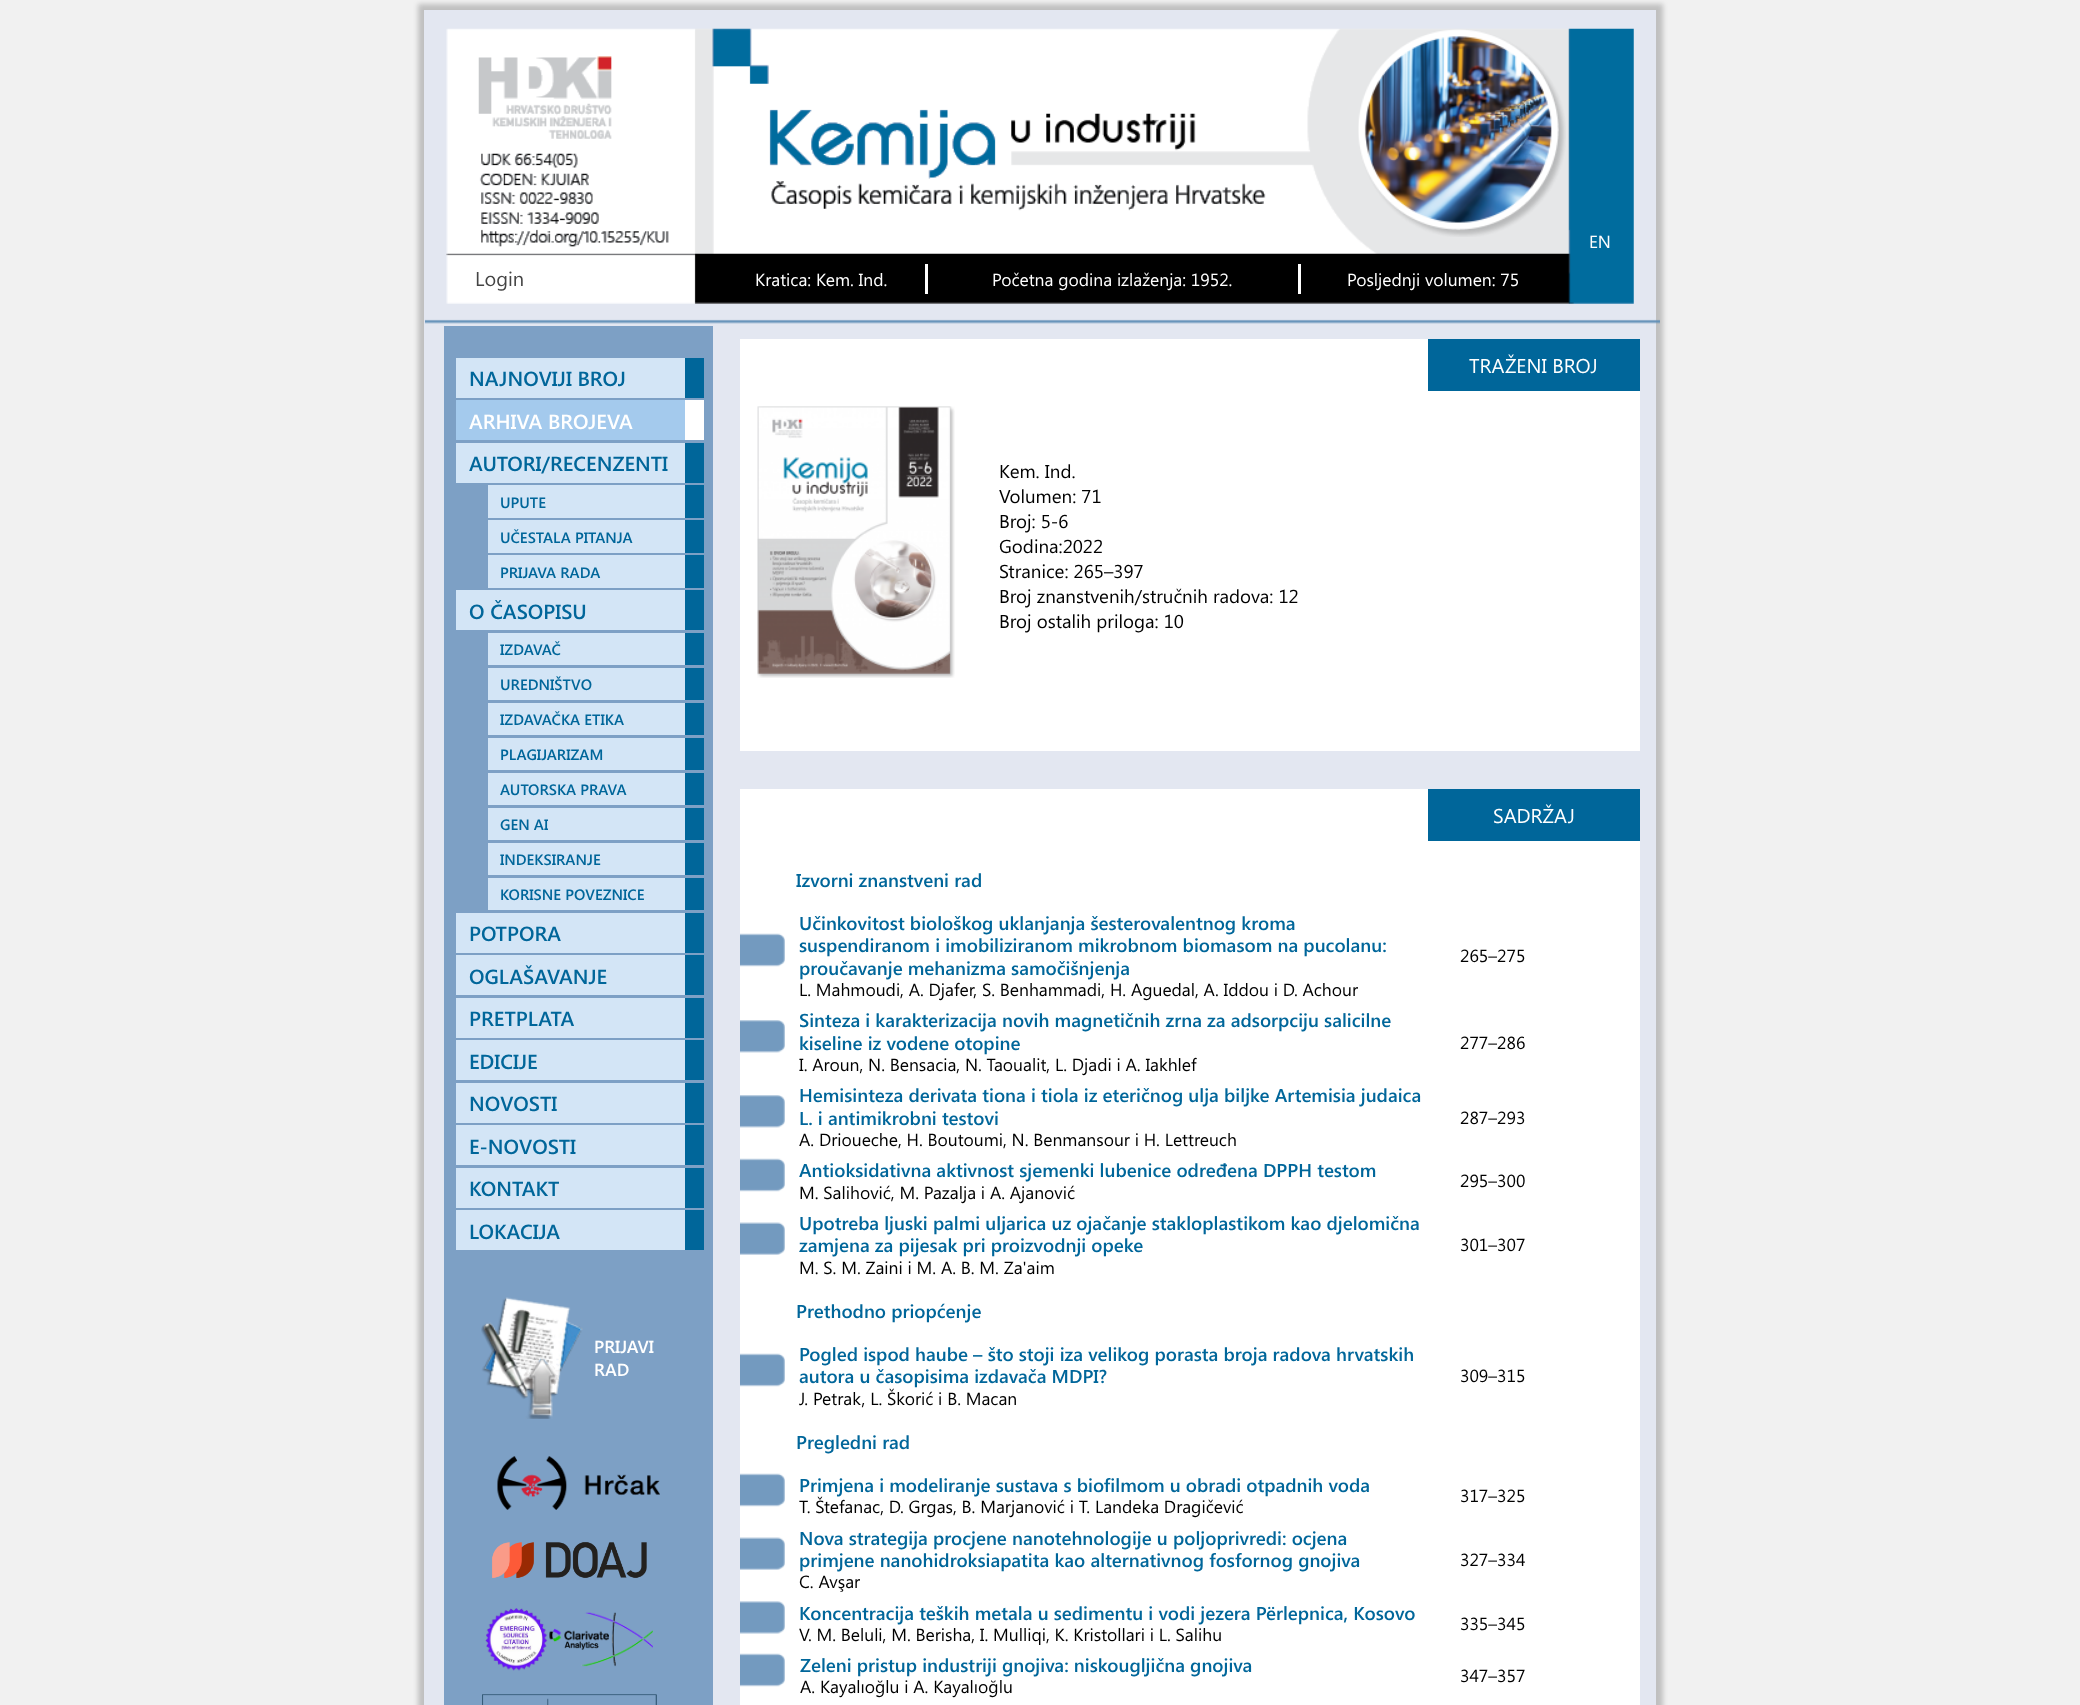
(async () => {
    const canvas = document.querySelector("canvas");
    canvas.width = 2080;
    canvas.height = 1705;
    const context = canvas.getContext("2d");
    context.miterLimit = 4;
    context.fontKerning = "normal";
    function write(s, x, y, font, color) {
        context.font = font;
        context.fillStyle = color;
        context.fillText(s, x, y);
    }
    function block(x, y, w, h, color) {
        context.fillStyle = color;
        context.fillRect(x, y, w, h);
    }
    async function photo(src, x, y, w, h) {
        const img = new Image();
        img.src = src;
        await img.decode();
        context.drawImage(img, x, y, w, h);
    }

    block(0, 0, 2080, 1705, "rgb(241, 241, 241)");
    context.fillStyle = "rgba(0, 0, 0, 0.2)";
    context.filter = "blur(2.5px)";
    context.beginPath();
    context.rect(418, 4, 1245, 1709);
    context.fill();
    context.filter = "none";
    block(424, 10, 1232, 1695, "rgb(227, 231, 241)");
    await photo("media/1.png", 425, 28, 1235, 296);
    await photo("media/2.png", 1358, 29, 208, 208);
    write("EN", 1589, 248, "17.5px Segoe UI", "rgb(255, 255, 255)");
    write("Login", 475, 286, "20px Segoe UI", "rgb(68, 68, 68)");
    write("Kratica: Kem. Ind.", 755, 286, "17.5px Segoe UI", "rgb(255, 255, 255)");
    block(925, 264, 3, 30, "rgb(255, 255, 255)");
    write("Početna godina izlaženja: 1952.", 992, 286, "17.5px Segoe UI", "rgb(255, 255, 255)");
    block(1298, 264, 3, 30, "rgb(255, 255, 255)");
    write("Posljednji volumen: 75", 1347, 286, "17.5px Segoe UI", "rgb(255, 255, 255)");
    block(444, 326, 269, 1379, "rgb(125, 160, 197)");
    block(456, 358, 229, 40, "rgb(211, 229, 246)");
    block(685, 358, 19, 40, "rgb(0, 102, 154)");
    write("NAJNOVIJI BROJ", 469, 386, "600 20.5px Segoe UI", "rgb(0, 102, 154)");
    block(456, 400, 229, 40, "rgb(164, 202, 237)");
    block(685, 400, 19, 40, "rgb(255, 255, 255)");
    write("ARHIVA BROJEVA", 469, 429, "600 20.5px Segoe UI", "rgb(255, 255, 255)");
    block(456, 443, 229, 40, "rgb(211, 229, 246)");
    block(685, 443, 19, 40, "rgb(0, 102, 154)");
    write("AUTORI/RECENZENTI", 469, 471, "600 20.5px Segoe UI", "rgb(0, 102, 154)");
    block(488, 485, 197, 33, "rgb(211, 229, 246)");
    block(685, 485, 19, 33, "rgb(0, 102, 154)");
    write("UPUTE", 500, 508, "600 15px Segoe UI", "rgb(0, 102, 154)");
    block(488, 520, 197, 33, "rgb(211, 229, 246)");
    block(685, 520, 19, 33, "rgb(0, 102, 154)");
    write("UČESTALA PITANJA", 500, 543, "600 15px Segoe UI", "rgb(0, 102, 154)");
    block(488, 555, 197, 33, "rgb(211, 229, 246)");
    block(685, 555, 19, 33, "rgb(0, 102, 154)");
    write("PRIJAVA RADA", 500, 578, "600 15px Segoe UI", "rgb(0, 102, 154)");
    block(456, 590, 229, 40, "rgb(211, 229, 246)");
    block(685, 590, 19, 40, "rgb(0, 102, 154)");
    write("O ČASOPISU", 469, 619, "600 20.5px Segoe UI", "rgb(0, 102, 154)");
    block(488, 633, 197, 32, "rgb(211, 229, 246)");
    block(685, 633, 19, 32, "rgb(0, 102, 154)");
    write("IZDAVAČ", 500, 655, "600 15px Segoe UI", "rgb(0, 102, 154)");
    block(488, 668, 197, 32, "rgb(211, 229, 246)");
    block(685, 668, 19, 32, "rgb(0, 102, 154)");
    write("UREDNIŠTVO", 500, 690, "600 15px Segoe UI", "rgb(0, 102, 154)");
    block(488, 703, 197, 32, "rgb(211, 229, 246)");
    block(685, 703, 19, 32, "rgb(0, 102, 154)");
    write("IZDAVAČKA ETIKA", 500, 725, "600 15px Segoe UI", "rgb(0, 102, 154)");
    block(488, 738, 197, 32, "rgb(211, 229, 246)");
    block(685, 738, 19, 32, "rgb(0, 102, 154)");
    write("PLAGIJARIZAM", 500, 760, "600 15px Segoe UI", "rgb(0, 102, 154)");
    block(488, 773, 197, 32, "rgb(211, 229, 246)");
    block(685, 773, 19, 32, "rgb(0, 102, 154)");
    write("AUTORSKA PRAVA", 500, 795, "600 15px Segoe UI", "rgb(0, 102, 154)");
    block(488, 808, 197, 32, "rgb(211, 229, 246)");
    block(685, 808, 19, 32, "rgb(0, 102, 154)");
    write("GEN AI", 500, 830, "600 15px Segoe UI", "rgb(0, 102, 154)");
    block(488, 843, 197, 32, "rgb(211, 229, 246)");
    block(685, 843, 19, 32, "rgb(0, 102, 154)");
    write("INDEKSIRANJE", 500, 865, "600 15px Segoe UI", "rgb(0, 102, 154)");
    block(488, 878, 197, 32, "rgb(211, 229, 246)");
    block(685, 878, 19, 32, "rgb(0, 102, 154)");
    write("KORISNE POVEZNICE", 500, 900, "600 15px Segoe UI", "rgb(0, 102, 154)");
    block(456, 913, 229, 40, "rgb(211, 229, 246)");
    block(685, 913, 19, 40, "rgb(0, 102, 154)");
    write("POTPORA", 469, 941, "600 20.5px Segoe UI", "rgb(0, 102, 154)");
    block(456, 955, 229, 40, "rgb(211, 229, 246)");
    block(685, 955, 19, 40, "rgb(0, 102, 154)");
    write("OGLAŠAVANJE", 469, 984, "600 20.5px Segoe UI", "rgb(0, 102, 154)");
    block(456, 998, 229, 40, "rgb(211, 229, 246)");
    block(685, 998, 19, 40, "rgb(0, 102, 154)");
    write("PRETPLATA", 469, 1026, "600 20.5px Segoe UI", "rgb(0, 102, 154)");
    block(456, 1040, 229, 40, "rgb(211, 229, 246)");
    block(685, 1040, 19, 40, "rgb(0, 102, 154)");
    write("EDICIJE", 469, 1069, "600 20.5px Segoe UI", "rgb(0, 102, 154)");
    block(456, 1083, 229, 40, "rgb(211, 229, 246)");
    block(685, 1083, 19, 40, "rgb(0, 102, 154)");
    write("NOVOSTI", 469, 1111, "600 20.5px Segoe UI", "rgb(0, 102, 154)");
    block(456, 1125, 229, 40, "rgb(211, 229, 246)");
    block(685, 1125, 19, 40, "rgb(0, 102, 154)");
    write("E-NOVOSTI", 469, 1154, "600 20.5px Segoe UI", "rgb(0, 102, 154)");
    block(456, 1168, 229, 40, "rgb(211, 229, 246)");
    block(685, 1168, 19, 40, "rgb(0, 102, 154)");
    write("KONTAKT", 469, 1196, "600 20.5px Segoe UI", "rgb(0, 102, 154)");
    block(456, 1210, 229, 40, "rgb(211, 229, 246)");
    block(685, 1210, 19, 40, "rgb(0, 102, 154)");
    write("LOKACIJA", 469, 1239, "600 20.5px Segoe UI", "rgb(0, 102, 154)");
    await photo("media/3.png", 481, 1297, 102, 122);
    write("PRIJAVI", 594, 1353, "600 17.5px Segoe UI", "rgb(255, 255, 255)");
    write("RAD", 594, 1376, "600 17.5px Segoe UI", "rgb(255, 255, 255)");
    await photo("media/4.png", 497, 1456, 163, 54);
    await photo("media/5.png", 492, 1542, 155, 36);
    await photo("media/6.png", 485, 1608, 168, 63);
    await photo("media/7.png", 482, 1694, 175, 11);
    block(740, 339, 900, 412, "rgb(255, 255, 255)");
    block(1428, 339, 212, 52, "rgb(0, 102, 154)");
    write("TRAŽENI BROJ", 1469, 373, "20px Segoe UI", "rgb(255, 255, 255)");
    await photo("media/8.png", 757, 406, 198, 272);
    write("Kem. Ind.", 999, 478, "18.75px Segoe UI", "rgb(0, 0, 0)");
    write("Volumen: 71", 999, 503, "18.75px Segoe UI", "rgb(0, 0, 0)");
    write("Broj: 5-6", 999, 528, "18.75px Segoe UI", "rgb(0, 0, 0)");
    write("Godina:2022", 999, 553, "18.75px Segoe UI", "rgb(0, 0, 0)");
    write("Stranice: 265–397", 999, 578, "18.75px Segoe UI", "rgb(0, 0, 0)");
    write("Broj znanstvenih/stručnih radova: 12", 999, 603, "18.75px Segoe UI", "rgb(0, 0, 0)");
    write("Broj ostalih priloga: 10", 999, 628, "18.75px Segoe UI", "rgb(0, 0, 0)");
    block(740, 789, 900, 916, "rgb(255, 255, 255)");
    block(1428, 789, 212, 52, "rgb(0, 102, 154)");
    write("SADRŽAJ", 1493, 823, "20px Segoe UI", "rgb(255, 255, 255)");
    write("Izvorni znanstveni rad", 796, 887, "600 18.75px Segoe UI", "rgb(0, 102, 154)");
    await photo("media/9.png", 740, 933, 45, 34);
    write("Učinkovitost biološkog uklanjanja šesterovalentnog kroma", 799, 930, "600 18.75px Segoe UI", "rgb(0, 102, 154)");
    write("suspendiranom i imobiliziranom mikrobnom biomasom na pucolanu:", 799, 952, "600 18.75px Segoe UI", "rgb(0, 102, 154)");
    write("proučavanje mehanizma samočišnjenja", 799, 975, "600 18.75px Segoe UI", "rgb(0, 102, 154)");
    write("L. Mahmoudi, A. Djafer, S. Benhammadi, H. Aguedal, A. Iddou i D. Achour", 799, 996, "17.5px Segoe UI", "rgb(0, 0, 0)");
    write("265–275", 1460, 962, "17.5px Segoe UI", "rgb(0, 0, 0)");
    await photo("media/10.png", 740, 1020, 45, 33);
    write("Sinteza i karakterizacija novih magnetičnih zrna za adsorpciju salicilne", 799, 1027, "600 18.75px Segoe UI", "rgb(0, 102, 154)");
    write("kiseline iz vodene otopine", 799, 1050, "600 18.75px Segoe UI", "rgb(0, 102, 154)");
    write("I. Aroun, N. Bensacia, N. Taoualit, L. Djadi i A. Iakhlef", 799, 1071, "17.5px Segoe UI", "rgb(0, 0, 0)");
    write("277–286", 1460, 1049, "17.5px Segoe UI", "rgb(0, 0, 0)");
    await photo("media/10.png", 740, 1095, 45, 33);
    write("Hemisinteza derivata tiona i tiola iz eteričnog ulja biljke Artemisia judaica", 799, 1102, "600 18.75px Segoe UI", "rgb(0, 102, 154)");
    write("L. i antimikrobni testovi", 799, 1125, "600 18.75px Segoe UI", "rgb(0, 102, 154)");
    write("A. Drioueche, H. Boutoumi, N. Benmansour i H. Lettreuch", 799, 1146, "17.5px Segoe UI", "rgb(0, 0, 0)");
    write("287–293", 1460, 1124, "17.5px Segoe UI", "rgb(0, 0, 0)");
    await photo("media/11.png", 740, 1158, 45, 34);
    write("Antioksidativna aktivnost sjemenki lubenice određena DPPH testom", 799, 1177, "600 18.75px Segoe UI", "rgb(0, 102, 154)");
    write("M. Salihović, M. Pazalja i A. Ajanović", 799, 1199, "17.5px Segoe UI", "rgb(0, 0, 0)");
    write("295–300", 1460, 1187, "17.5px Segoe UI", "rgb(0, 0, 0)");
    await photo("media/12.png", 740, 1222, 45, 33);
    write("Upotreba ljuski palmi uljarica uz ojačanje stakloplastikom kao djelomična", 799, 1230, "600 18.75px Segoe UI", "rgb(0, 102, 154)");
    write("zamjena za pijesak pri proizvodnji opeke", 799, 1252, "600 18.75px Segoe UI", "rgb(0, 102, 154)");
    write("M. S. M. Zaini i M. A. B. M. Za'aim", 799, 1274, "17.5px Segoe UI", "rgb(0, 0, 0)");
    write("301–307", 1460, 1251, "17.5px Segoe UI", "rgb(0, 0, 0)");
    write("Prethodno priopćenje", 796, 1318, "600 18.75px Segoe UI", "rgb(0, 102, 154)");
    await photo("media/9.png", 740, 1353, 45, 34);
    write("Pogled ispod haube – što stoji iza velikog porasta broja radova hrvatskih", 799, 1361, "600 18.75px Segoe UI", "rgb(0, 102, 154)");
    write("autora u časopisima izdavača MDPI?", 799, 1383, "600 18.75px Segoe UI", "rgb(0, 102, 154)");
    write("J. Petrak, L. Škorić i B. Macan", 799, 1405, "17.5px Segoe UI", "rgb(0, 0, 0)");
    write("309–315", 1460, 1382, "17.5px Segoe UI", "rgb(0, 0, 0)");
    write("Pregledni rad", 796, 1449, "600 18.75px Segoe UI", "rgb(0, 102, 154)");
    await photo("media/9.png", 740, 1473, 45, 34);
    write("Primjena i modeliranje sustava s biofilmom u obradi otpadnih voda", 799, 1492, "600 18.75px Segoe UI", "rgb(0, 102, 154)");
    write("T. Štefanac, D. Grgas, B. Marjanović i T. Landeka Dragičević", 799, 1513, "17.5px Segoe UI", "rgb(0, 0, 0)");
    write("317–325", 1460, 1502, "17.5px Segoe UI", "rgb(0, 0, 0)");
    await photo("media/12.png", 740, 1537, 45, 33);
    write("Nova strategija procjene nanotehnologije u poljoprivredi: ocjena", 799, 1545, "600 18.75px Segoe UI", "rgb(0, 102, 154)");
    write("primjene nanohidroksiapatita kao alternativnog fosfornog gnojiva", 799, 1567, "600 18.75px Segoe UI", "rgb(0, 102, 154)");
    write("C. Avşar", 799, 1588, "17.5px Segoe UI", "rgb(0, 0, 0)");
    write("327–334", 1460, 1566, "17.5px Segoe UI", "rgb(0, 0, 0)");
    await photo("media/13.png", 740, 1601, 45, 33);
    write("Koncentracija teških metala u sedimentu i vodi jezera Përlepnica, Kosovo", 799, 1620, "600 18.75px Segoe UI", "rgb(0, 102, 154)");
    write("V. M. Beluli, M. Berisha, I. Mulliqi, K. Kristollari i L. Salihu", 799, 1641, "17.5px Segoe UI", "rgb(0, 0, 0)");
    write("335–345", 1460, 1630, "17.5px Segoe UI", "rgb(0, 0, 0)");
    await photo("media/9.png", 740, 1653, 45, 34);
    write("Zeleni pristup industriji gnojiva: niskougljična gnojiva", 800, 1672, "600 18.75px Segoe UI", "rgb(0, 102, 154)");
    write("A. Kayalıoğlu i A. Kayalıoğlu", 800, 1693, "17.5px Segoe UI", "rgb(0, 0, 0)");
    write("347–357", 1460, 1682, "17.5px Segoe UI", "rgb(0, 0, 0)");
})();
